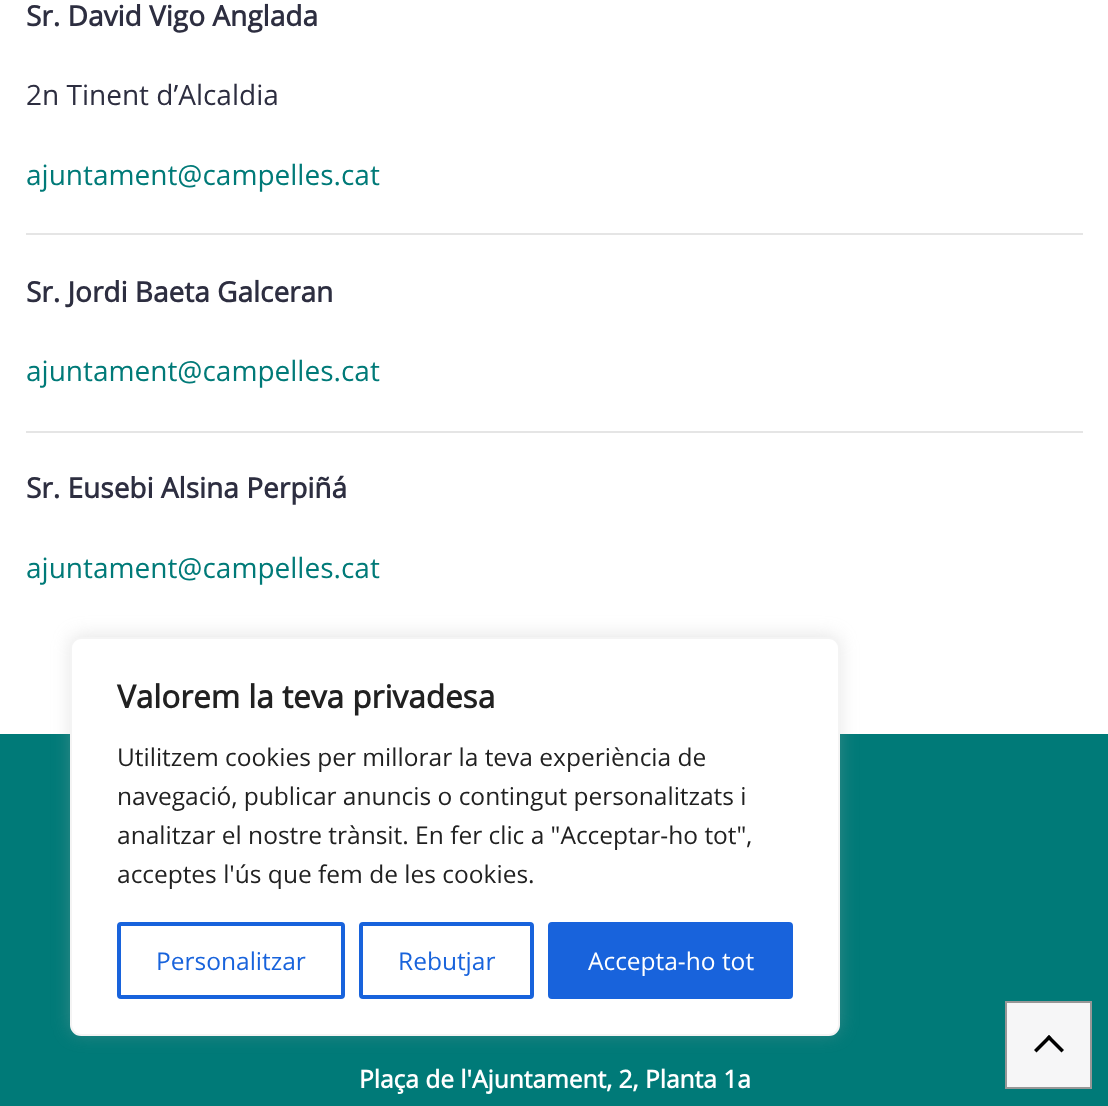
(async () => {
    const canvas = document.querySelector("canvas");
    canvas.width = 1108;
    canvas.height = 1106;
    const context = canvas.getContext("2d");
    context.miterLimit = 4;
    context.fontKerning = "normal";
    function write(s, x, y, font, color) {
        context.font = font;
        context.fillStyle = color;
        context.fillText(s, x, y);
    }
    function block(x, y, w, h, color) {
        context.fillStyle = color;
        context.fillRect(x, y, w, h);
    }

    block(0, 0, 1108, 1106, "rgb(255, 255, 255)");
    write("Sr. David Vigo Anglada", 26, 26, "bold 28px Open Sans", "rgb(45, 46, 64)");
    write("2n Tinent d’Alcaldia", 26, 105, "28px Open Sans", "rgb(45, 46, 64)");
    write("ajuntament@campelles.cat", 26, 185, "28px Open Sans", "rgb(0, 122, 120)");
    block(26, 233, 1057, 2, "rgb(229, 229, 229)");
    write("Sr. Jordi Baeta Galceran", 26, 302, "bold 28px Open Sans", "rgb(45, 46, 64)");
    write("ajuntament@campelles.cat", 26, 381, "28px Open Sans", "rgb(0, 122, 120)");
    block(26, 431, 1057, 2, "rgb(229, 229, 229)");
    write("Sr. Eusebi Alsina Perpiñá", 26, 498, "bold 28px Open Sans", "rgb(45, 46, 64)");
    write("ajuntament@campelles.cat", 26, 578, "28px Open Sans", "rgb(0, 122, 120)");
    block(0, 734, 1108, 372, "rgb(0, 122, 120)");
    context.fillStyle = "rgba(172, 171, 171, 0.3)";
    context.filter = "blur(9px)";
    context.beginPath();
    context.roundRect(70, 635, 770, 399, 11);
    context.fill();
    context.filter = "none";
    context.fillStyle = "rgb(255, 255, 255)";
    context.beginPath();
    context.roundRect(71, 638, 768, 397, 10);
    context.fill();
    context.strokeStyle = "rgb(244, 244, 244)";
    context.lineWidth = 2;
    context.stroke();
    write("Valorem la teva privadesa", 117, 708, "bold 31.5px Open Sans", "rgb(33, 33, 33)");
    write("Utilitzem cookies per millorar la teva experiència de", 117, 766, "24.5px Open Sans", "rgb(33, 33, 33)");
    write("navegació, publicar anuncis o contingut personalitzats i", 117, 805, "24.5px Open Sans", "rgb(33, 33, 33)");
    write("analitzar el nostre trànsit. En fer clic a \"Acceptar-ho tot\",", 117, 844, "24.5px Open Sans", "rgb(33, 33, 33)");
    write("acceptes l'ús que fem de les cookies.", 117, 883, "24.5px Open Sans", "rgb(33, 33, 33)");
    context.beginPath();
    context.roundRect(119, 924, 224, 73, 2);
    context.strokeStyle = "rgb(24, 99, 220)";
    context.lineWidth = 4;
    context.stroke();
    write("Personalitzar", 156, 970, "24.5px Open Sans", "rgb(24, 99, 220)");
    context.beginPath();
    context.roundRect(361, 924, 171, 73, 2);
    context.stroke();
    write("Rebutjar", 398, 970, "24.5px Open Sans", "rgb(24, 99, 220)");
    context.beginPath();
    context.roundRect(550, 924, 241, 73, 2);
    context.fill();
    context.stroke();
    write("Accepta-ho tot", 588, 970, "24.5px Open Sans", "rgb(255, 255, 255)");
    write("Plaça de l'Ajuntament, 2, Planta 1a", 359, 1088, "bold 24.5px Open Sans", "rgb(255, 255, 255)");
    context.fillStyle = "rgb(246, 246, 247)";
    context.beginPath();
    context.rect(1006, 1002, 85, 86);
    context.fill();
    context.strokeStyle = "rgb(151, 151, 151)";
    context.lineWidth = 2;
    context.stroke();
    context.fillStyle = "rgb(0, 0, 0)";
    context.beginPath();
    context.moveTo(1034, 1050);
    context.lineTo(1049, 1035);
    context.lineTo(1051.5, 1037.5);
    context.lineTo(1036.5, 1052.5);
    context.closePath();
    context.fill();
    context.beginPath();
    context.moveTo(1046.5, 1037.5);
    context.lineTo(1049, 1035);
    context.lineTo(1064, 1050);
    context.lineTo(1061.5, 1052.5);
    context.closePath();
    context.fill();
})();
